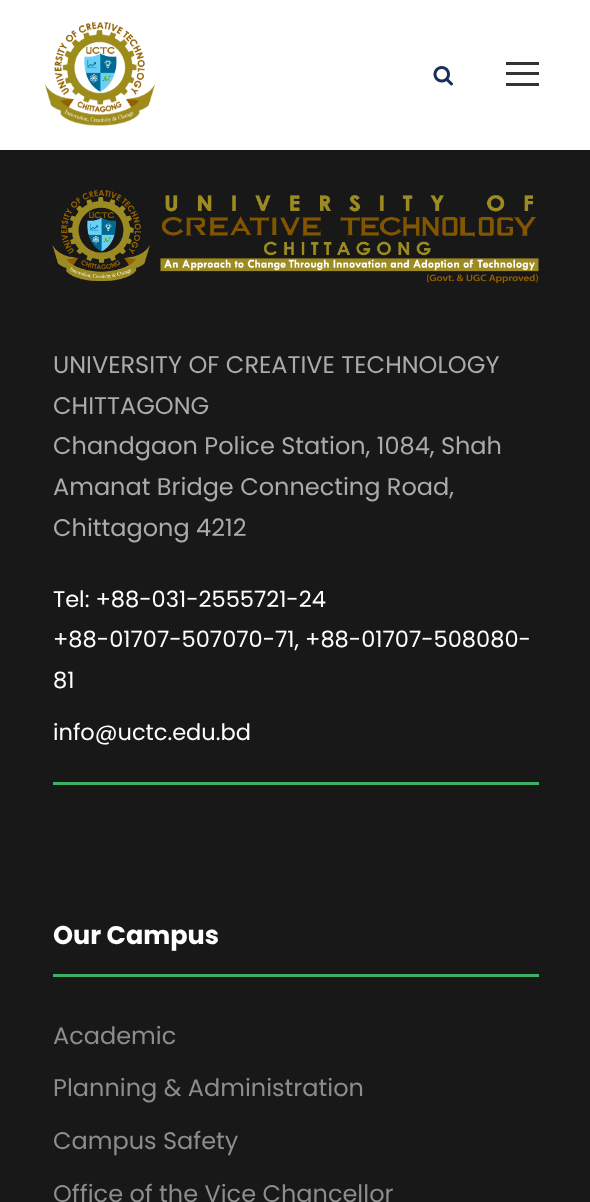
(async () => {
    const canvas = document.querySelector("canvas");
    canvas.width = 590;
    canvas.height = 1202;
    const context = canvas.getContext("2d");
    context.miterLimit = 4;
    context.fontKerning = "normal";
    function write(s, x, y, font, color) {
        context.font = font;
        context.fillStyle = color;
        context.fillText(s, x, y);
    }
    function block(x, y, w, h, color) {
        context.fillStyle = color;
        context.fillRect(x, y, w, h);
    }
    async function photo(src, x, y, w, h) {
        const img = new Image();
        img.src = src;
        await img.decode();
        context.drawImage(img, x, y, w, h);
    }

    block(0, 0, 590, 1202, "rgb(24, 24, 24)");
    block(0, 0, 590, 150, "rgb(255, 255, 255)");
    await photo("media/1.png", 45, 22, 110, 104);
    await photo("media/2.png", 433, 66, 20, 20);
    block(506, 62, 33, 3, "rgb(51, 51, 51)");
    block(506, 72, 33, 3, "rgb(51, 51, 51)");
    block(506, 83, 33, 3, "rgb(51, 51, 51)");
    await photo("media/3.png", 52, 190, 487, 93);
    write("UNIVERSITY OF CREATIVE TECHNOLOGY", 53, 373, "24px Poppins", "rgb(171, 171, 171)");
    write("CHITTAGONG", 53, 414, "24px Poppins", "rgb(171, 171, 171)");
    write("Chandgaon Police Station, 1084, Shah", 53, 454, "24px Poppins", "rgb(171, 171, 171)");
    write("Amanat Bridge Connecting Road,", 53, 495, "24px Poppins", "rgb(171, 171, 171)");
    write("Chittagong 4212", 53, 536, "24px Poppins", "rgb(171, 171, 171)");
    write("Tel: +88-031-2555721-24", 53, 607, "22.5px Poppins", "rgb(255, 255, 255)");
    write("+88-01707-507070-71, +88-01707-508080-", 53, 647, "22.5px Poppins", "rgb(255, 255, 255)");
    write("81", 53, 688, "22.5px Poppins", "rgb(255, 255, 255)");
    write("info@uctc.edu.bd", 53, 740, "22.5px Poppins", "rgb(255, 255, 255)");
    block(53, 782, 486, 3, "rgb(61, 177, 102)");
    block(53, 974, 486, 3, "rgb(61, 177, 102)");
    write("Our Campus", 53, 944, "bold 25.5px Poppins", "rgb(255, 255, 255)");
    write("Academic", 53, 1044, "24px Poppins", "rgb(141, 141, 141)");
    write("Planning & Administration", 53, 1096, "24px Poppins", "rgb(141, 141, 141)");
    write("Campus Safety", 53, 1149, "24px Poppins", "rgb(141, 141, 141)");
    write("Office of the Vice Chancellor", 53, 1202, "24px Poppins", "rgb(141, 141, 141)");
})();
